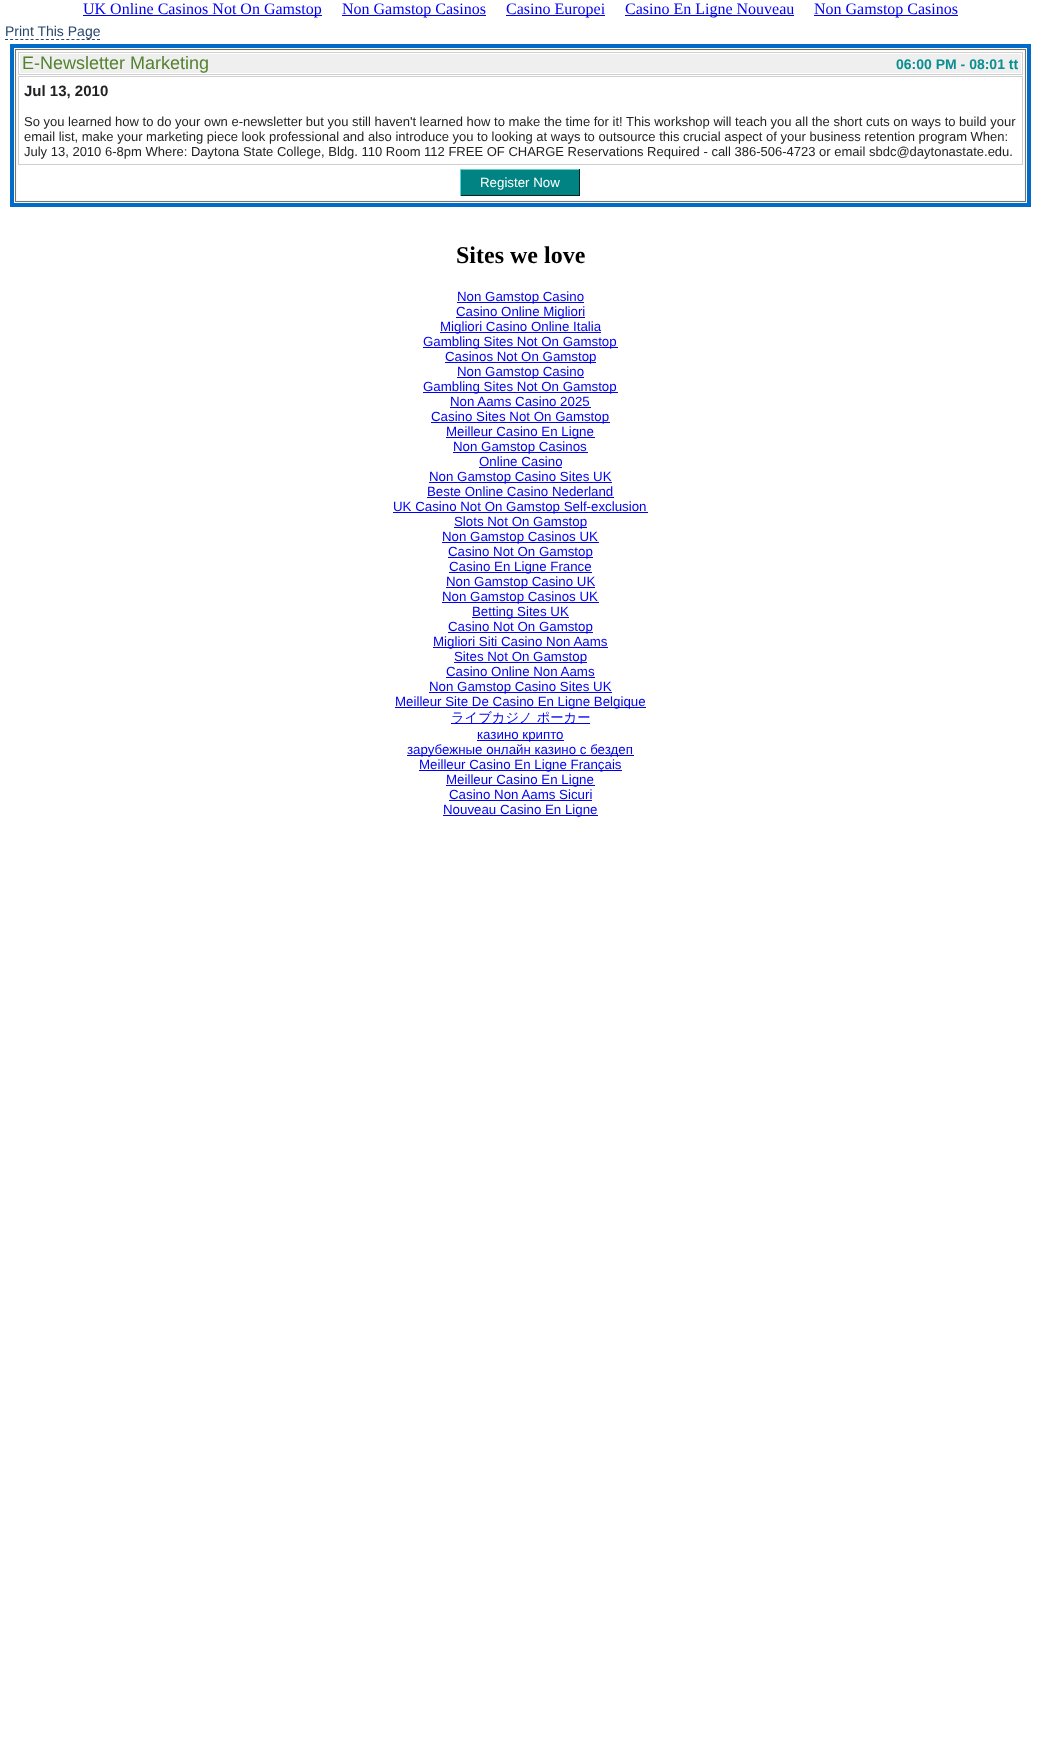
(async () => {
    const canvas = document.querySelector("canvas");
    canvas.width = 1041;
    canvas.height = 1753;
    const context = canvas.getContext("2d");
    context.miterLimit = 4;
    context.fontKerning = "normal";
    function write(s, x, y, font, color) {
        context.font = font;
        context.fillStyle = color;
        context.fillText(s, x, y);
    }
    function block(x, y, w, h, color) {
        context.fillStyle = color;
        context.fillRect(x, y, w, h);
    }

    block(0, 0, 1041, 1753, "rgb(255, 255, 255)");
    block(83, 15, 239, 1, "rgb(0, 0, 238)");
    write("UK Online Casinos Not On Gamstop", 83, 14, "16px Liberation Serif", "rgb(0, 0, 238)");
    block(342, 15, 144, 1, "rgb(0, 0, 238)");
    write("Non Gamstop Casinos", 342, 14, "16px Liberation Serif", "rgb(0, 0, 238)");
    block(506, 15, 99, 1, "rgb(0, 0, 238)");
    write("Casino Europei", 506, 14, "16px Liberation Serif", "rgb(0, 0, 238)");
    block(625, 15, 169, 1, "rgb(0, 0, 238)");
    write("Casino En Ligne Nouveau", 625, 14, "16px Liberation Serif", "rgb(0, 0, 238)");
    block(814, 15, 144, 1, "rgb(0, 0, 238)");
    write("Non Gamstop Casinos", 814, 14, "16px Liberation Serif", "rgb(0, 0, 238)");
    write("Print This Page", 5, 36, "14px Liberation Sans", "rgb(42, 70, 107)");
    context.beginPath();
    context.moveTo(5, 39.5);
    context.lineTo(100, 39.5);
    context.strokeStyle = "rgb(42, 70, 107)";
    context.setLineDash([3, 2.11]);
    context.stroke();
    context.strokeStyle = "rgb(1, 107, 201)";
    context.lineWidth = 4;
    context.setLineDash([]);
    context.strokeRect(12, 46, 1017, 159);
    context.strokeStyle = "rgb(249, 248, 241)";
    context.lineWidth = 1;
    context.strokeRect(14.5, 48.5, 1012, 154);
    context.strokeStyle = "rgb(116, 116, 116)";
    context.strokeRect(15.5, 49.5, 1010, 152);
    context.strokeStyle = "rgb(249, 248, 241)";
    context.strokeRect(16.5, 50.5, 1008, 150);
    block(20, 54, 1001, 19, "rgb(239, 239, 239)");
    context.strokeStyle = "rgb(207, 207, 207)";
    context.strokeRect(18.5, 52.5, 1004, 22);
    write("E-Newsletter Marketing", 22, 69, "18px Liberation Sans", "rgb(83, 131, 47)");
    write("06:00 PM - 08:01 tt", 896, 69, "bold 14px Liberation Sans", "rgb(11, 142, 144)");
    context.strokeRect(18.5, 76.5, 1004, 88);
    write("Jul 13, 2010", 24, 96, "bold 15px Liberation Sans", "rgb(35, 35, 35)");
    write("So you learned how to do your own e-newsletter but you still haven't learned how to make the time for it! This workshop will teach you all the short cuts on ways to build your", 24, 126, "13px Liberation Sans", "rgb(35, 35, 35)");
    write("email list, make your marketing piece look professional and also introduce you to looking at ways to outsource this crucial aspect of your business retention program When:", 24, 141, "13px Liberation Sans", "rgb(35, 35, 35)");
    write("July 13, 2010 6-8pm Where: Daytona State College, Bldg. 110 Room 112 FREE OF CHARGE Reservations Required - call 386-506-4723 or email sbdc@daytonastate.edu.", 24, 156, "13px Liberation Sans", "rgb(35, 35, 35)");
    block(461, 170, 118, 25, "rgb(1, 131, 131)");
    block(460, 169, 120, 1, "rgb(92, 210, 211)");
    block(579, 169, 1, 27, "rgb(0, 37, 37)");
    block(460, 195, 120, 1, "rgb(0, 37, 37)");
    block(460, 169, 1, 27, "rgb(92, 210, 211)");
    write("Register Now", 480, 187, "13.3px Liberation Sans", "rgb(255, 255, 255)");
    write("Sites we love", 456, 263, "bold 24px Liberation Serif", "rgb(0, 0, 0)");
    block(457, 302, 127, 1, "rgb(0, 0, 238)");
    write("Non Gamstop Casino", 457, 301, "13.3px Liberation Sans", "rgb(0, 0, 238)");
    block(456, 317, 129, 1, "rgb(0, 0, 238)");
    write("Casino Online Migliori", 456, 316, "13.3px Liberation Sans", "rgb(0, 0, 238)");
    block(440, 332, 161, 1, "rgb(0, 0, 238)");
    write("Migliori Casino Online Italia", 440, 331, "13.3px Liberation Sans", "rgb(0, 0, 238)");
    block(423, 347, 195, 1, "rgb(0, 0, 238)");
    write("Gambling Sites Not On Gamstop", 423, 346, "13.3px Liberation Sans", "rgb(0, 0, 238)");
    block(445, 362, 151, 1, "rgb(0, 0, 238)");
    write("Casinos Not On Gamstop", 445, 361, "13.3px Liberation Sans", "rgb(0, 0, 238)");
    block(457, 377, 127, 1, "rgb(0, 0, 238)");
    write("Non Gamstop Casino", 457, 376, "13.3px Liberation Sans", "rgb(0, 0, 238)");
    block(423, 392, 195, 1, "rgb(0, 0, 238)");
    write("Gambling Sites Not On Gamstop", 423, 391, "13.3px Liberation Sans", "rgb(0, 0, 238)");
    write("Non Aams Casino 2025", 450, 406, "13.3px Liberation Sans", "rgb(0, 0, 238)");
    block(450, 407, 141, 1, "rgb(0, 0, 238)");
    block(431, 422, 179, 1, "rgb(0, 0, 238)");
    write("Casino Sites Not On Gamstop", 431, 421, "13.3px Liberation Sans", "rgb(0, 0, 238)");
    block(446, 437, 149, 1, "rgb(0, 0, 238)");
    write("Meilleur Casino En Ligne", 446, 436, "13.3px Liberation Sans", "rgb(0, 0, 238)");
    block(453, 452, 135, 1, "rgb(0, 0, 238)");
    write("Non Gamstop Casinos", 453, 451, "13.3px Liberation Sans", "rgb(0, 0, 238)");
    write("Online Casino", 479, 466, "13.3px Liberation Sans", "rgb(0, 0, 238)");
    block(479, 467, 83, 1, "rgb(0, 0, 238)");
    block(429, 482, 183, 1, "rgb(0, 0, 238)");
    write("Non Gamstop Casino Sites UK", 429, 481, "13.3px Liberation Sans", "rgb(0, 0, 238)");
    write("Beste Online Casino Nederland", 427, 496, "13.3px Liberation Sans", "rgb(0, 0, 238)");
    block(427, 497, 187, 1, "rgb(0, 0, 238)");
    block(393, 512, 255, 1, "rgb(0, 0, 238)");
    write("UK Casino Not On Gamstop Self-exclusion", 393, 511, "13.3px Liberation Sans", "rgb(0, 0, 238)");
    block(454, 527, 133, 1, "rgb(0, 0, 238)");
    write("Slots Not On Gamstop", 454, 526, "13.3px Liberation Sans", "rgb(0, 0, 238)");
    block(442, 542, 157, 1, "rgb(0, 0, 238)");
    write("Non Gamstop Casinos UK", 442, 541, "13.3px Liberation Sans", "rgb(0, 0, 238)");
    block(448, 557, 145, 1, "rgb(0, 0, 238)");
    write("Casino Not On Gamstop", 448, 556, "13.3px Liberation Sans", "rgb(0, 0, 238)");
    block(449, 572, 143, 1, "rgb(0, 0, 238)");
    write("Casino En Ligne France", 449, 571, "13.3px Liberation Sans", "rgb(0, 0, 238)");
    block(446, 587, 149, 1, "rgb(0, 0, 238)");
    write("Non Gamstop Casino UK", 446, 586, "13.3px Liberation Sans", "rgb(0, 0, 238)");
    block(442, 602, 157, 1, "rgb(0, 0, 238)");
    write("Non Gamstop Casinos UK", 442, 601, "13.3px Liberation Sans", "rgb(0, 0, 238)");
    block(472, 617, 97, 1, "rgb(0, 0, 238)");
    write("Betting Sites UK", 472, 616, "13.3px Liberation Sans", "rgb(0, 0, 238)");
    block(448, 632, 145, 1, "rgb(0, 0, 238)");
    write("Casino Not On Gamstop", 448, 631, "13.3px Liberation Sans", "rgb(0, 0, 238)");
    block(433, 647, 175, 1, "rgb(0, 0, 238)");
    write("Migliori Siti Casino Non Aams", 433, 646, "13.3px Liberation Sans", "rgb(0, 0, 238)");
    block(454, 662, 133, 1, "rgb(0, 0, 238)");
    write("Sites Not On Gamstop", 454, 661, "13.3px Liberation Sans", "rgb(0, 0, 238)");
    write("Casino Online Non Aams", 446, 676, "13.3px Liberation Sans", "rgb(0, 0, 238)");
    block(446, 677, 149, 1, "rgb(0, 0, 238)");
    block(429, 692, 183, 1, "rgb(0, 0, 238)");
    write("Non Gamstop Casino Sites UK", 429, 691, "13.3px Liberation Sans", "rgb(0, 0, 238)");
    block(395, 707, 251, 1, "rgb(0, 0, 238)");
    write("Meilleur Site De Casino En Ligne Belgique", 395, 706, "13.3px Liberation Sans", "rgb(0, 0, 238)");
    block(451, 723, 139, 1, "rgb(0, 0, 238)");
    write("ライブカジノ ポーカー", 451, 722, "500 13.3px WenQuanYi Zen Hei", "rgb(0, 0, 238)");
    block(477, 740, 87, 1, "rgb(0, 0, 238)");
    write("казино крипто", 477, 739, "13.3px Liberation Sans", "rgb(0, 0, 238)");
    block(407, 755, 227, 1, "rgb(0, 0, 238)");
    write("зарубежные онлайн казино с бездеп", 407, 754, "13.3px Liberation Sans", "rgb(0, 0, 238)");
    block(419, 770, 203, 1, "rgb(0, 0, 238)");
    write("Meilleur Casino En Ligne Français", 419, 769, "13.3px Liberation Sans", "rgb(0, 0, 238)");
    block(446, 785, 149, 1, "rgb(0, 0, 238)");
    write("Meilleur Casino En Ligne", 446, 784, "13.3px Liberation Sans", "rgb(0, 0, 238)");
    write("Casino Non Aams Sicuri", 449, 799, "13.3px Liberation Sans", "rgb(0, 0, 238)");
    block(449, 800, 143, 1, "rgb(0, 0, 238)");
    block(443, 815, 155, 1, "rgb(0, 0, 238)");
    write("Nouveau Casino En Ligne", 443, 814, "13.3px Liberation Sans", "rgb(0, 0, 238)");
})();
